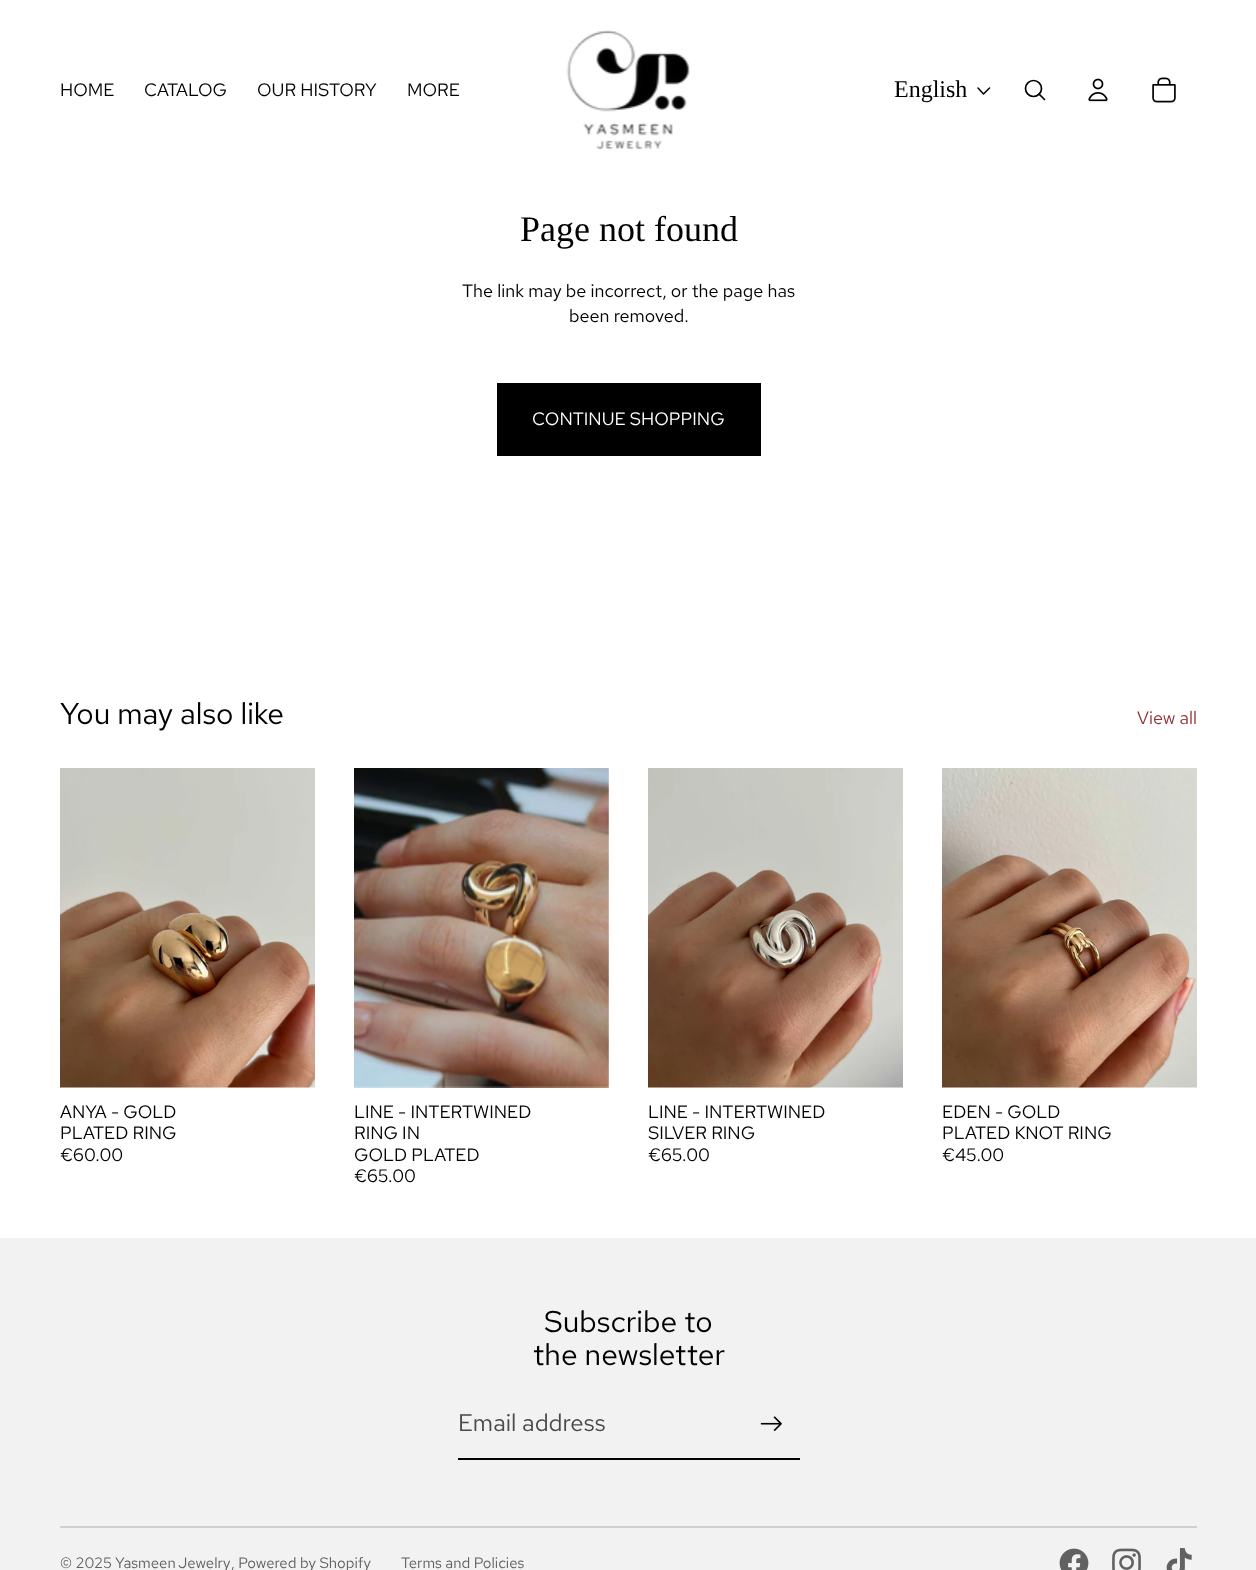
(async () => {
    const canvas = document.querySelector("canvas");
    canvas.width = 1256;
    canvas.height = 1570;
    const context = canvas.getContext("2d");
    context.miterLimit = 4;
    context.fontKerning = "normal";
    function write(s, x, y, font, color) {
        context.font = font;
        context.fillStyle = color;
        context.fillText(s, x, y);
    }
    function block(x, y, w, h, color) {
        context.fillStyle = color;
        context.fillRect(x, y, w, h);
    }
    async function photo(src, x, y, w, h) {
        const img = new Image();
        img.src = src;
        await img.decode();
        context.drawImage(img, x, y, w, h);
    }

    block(0, 0, 1256, 1570, "rgb(255, 255, 255)");
    write("HOME", 60, 96, "18px Red Hat Text", "rgb(0, 0, 0)");
    write("CATALOG", 144, 96, "18px Red Hat Text", "rgb(0, 0, 0)");
    write("OUR HISTORY", 257, 96, "18px Red Hat Text", "rgb(0, 0, 0)");
    write("MORE", 407, 96, "18px Red Hat Text", "rgb(0, 0, 0)");
    await photo("media/1.png", 566, 30, 124, 120);
    write("English", 894, 97, "24px Liberation Serif", "rgb(0, 0, 0)");
    context.beginPath();
    context.moveTo(989.5, 88);
    context.lineTo(983.5, 94);
    context.lineTo(978, 88);
    context.strokeStyle = "rgb(0, 0, 0)";
    context.lineWidth = 1.5;
    context.lineCap = "round";
    context.lineJoin = "round";
    context.stroke();
    context.beginPath();
    context.arc(1033.5, 88.5, 8, 0, Math.PI * 2);
    context.lineWidth = 1.7;
    context.stroke();
    context.beginPath();
    context.moveTo(1039, 94);
    context.lineTo(1044.5, 99.5);
    context.stroke();
    await photo("media/2.png", 1088, 78, 20, 24);
    await photo("media/3.png", 1152, 77, 24, 26);
    write("Page not found", 520, 241, "36px Liberation Serif", "rgb(0, 0, 0)");
    write("The link may be incorrect, or the page has", 462, 297, "18px Red Hat Text", "rgb(0, 0, 0)");
    write("been removed.", 569, 322, "18px Red Hat Text", "rgb(0, 0, 0)");
    block(497, 383, 264, 73, "rgb(0, 0, 0)");
    write("CONTINUE SHOPPING", 532, 425, "18px Red Hat Text", "rgb(255, 255, 255)");
    write("You may also like", 60, 724, "30px Red Hat Text", "rgb(0, 0, 0)");
    write("View all", 1137, 724, "18px Red Hat Text", "rgb(145, 53, 53)");
    await photo("media/4.png", 60, 768, 255, 320);
    write("ANYA - GOLD", 60, 1118, "18px Red Hat Text", "rgb(0, 0, 0)");
    write("PLATED RING", 60, 1139, "18px Red Hat Text", "rgb(0, 0, 0)");
    write("€60.00", 60, 1161, "18px Red Hat Text", "rgb(0, 0, 0)");
    await photo("media/5.png", 354, 768, 255, 320);
    write("LINE - INTERTWINED", 354, 1118, "18px Red Hat Text", "rgb(0, 0, 0)");
    write("RING IN", 354, 1139, "18px Red Hat Text", "rgb(0, 0, 0)");
    write("GOLD PLATED", 354, 1161, "18px Red Hat Text", "rgb(0, 0, 0)");
    write("€65.00", 354, 1182, "18px Red Hat Text", "rgb(0, 0, 0)");
    await photo("media/6.png", 648, 768, 255, 320);
    write("LINE - INTERTWINED", 648, 1118, "18px Red Hat Text", "rgb(0, 0, 0)");
    write("SILVER RING", 648, 1139, "18px Red Hat Text", "rgb(0, 0, 0)");
    write("€65.00", 648, 1161, "18px Red Hat Text", "rgb(0, 0, 0)");
    await photo("media/7.png", 942, 768, 255, 320);
    write("EDEN - GOLD", 942, 1118, "18px Red Hat Text", "rgb(0, 0, 0)");
    write("PLATED KNOT RING", 942, 1139, "18px Red Hat Text", "rgb(0, 0, 0)");
    write("€45.00", 942, 1161, "18px Red Hat Text", "rgb(0, 0, 0)");
    block(0, 1238, 1256, 332, "rgb(242, 242, 242)");
    write("Subscribe to", 544, 1332, "30px Red Hat Text", "rgb(0, 0, 0)");
    write("the newsletter", 533, 1365, "30px Red Hat Text", "rgb(0, 0, 0)");
    context.beginPath();
    context.moveTo(458, 1458);
    context.lineTo(458, 1460);
    context.lineTo(800, 1460);
    context.lineTo(800, 1391);
    context.lineTo(800, 1458);
    context.closePath();
    context.fill();
    write("Email address", 458, 1431, "24px Red Hat Text", "rgb(73, 73, 73)");
    await photo("media/8.png", 760, 1416, 22, 15);
    block(60, 1526, 1137, 2, "rgb(208, 208, 208)");
    write("© 2025", 60, 1568, "15px Red Hat Text", "rgb(97, 97, 97)");
    context.wordSpacing = "-1px";
    write("Yasmeen Jewelry", 115, 1568, "15px Red Hat Text", "rgb(97, 97, 97)");
    context.wordSpacing = "0px";
    write(", Powered by Shopify", 231, 1568, "15px Red Hat Text", "rgb(97, 97, 97)");
    write("Terms and Policies", 401, 1568, "15px Red Hat Text", "rgb(97, 97, 97)");
    await photo("media/9.png", 1059, 1548, 30, 22);
    await photo("media/10.png", 1112, 1548, 29, 22);
    await photo("media/11.png", 1166, 1548, 26, 22);
})();
